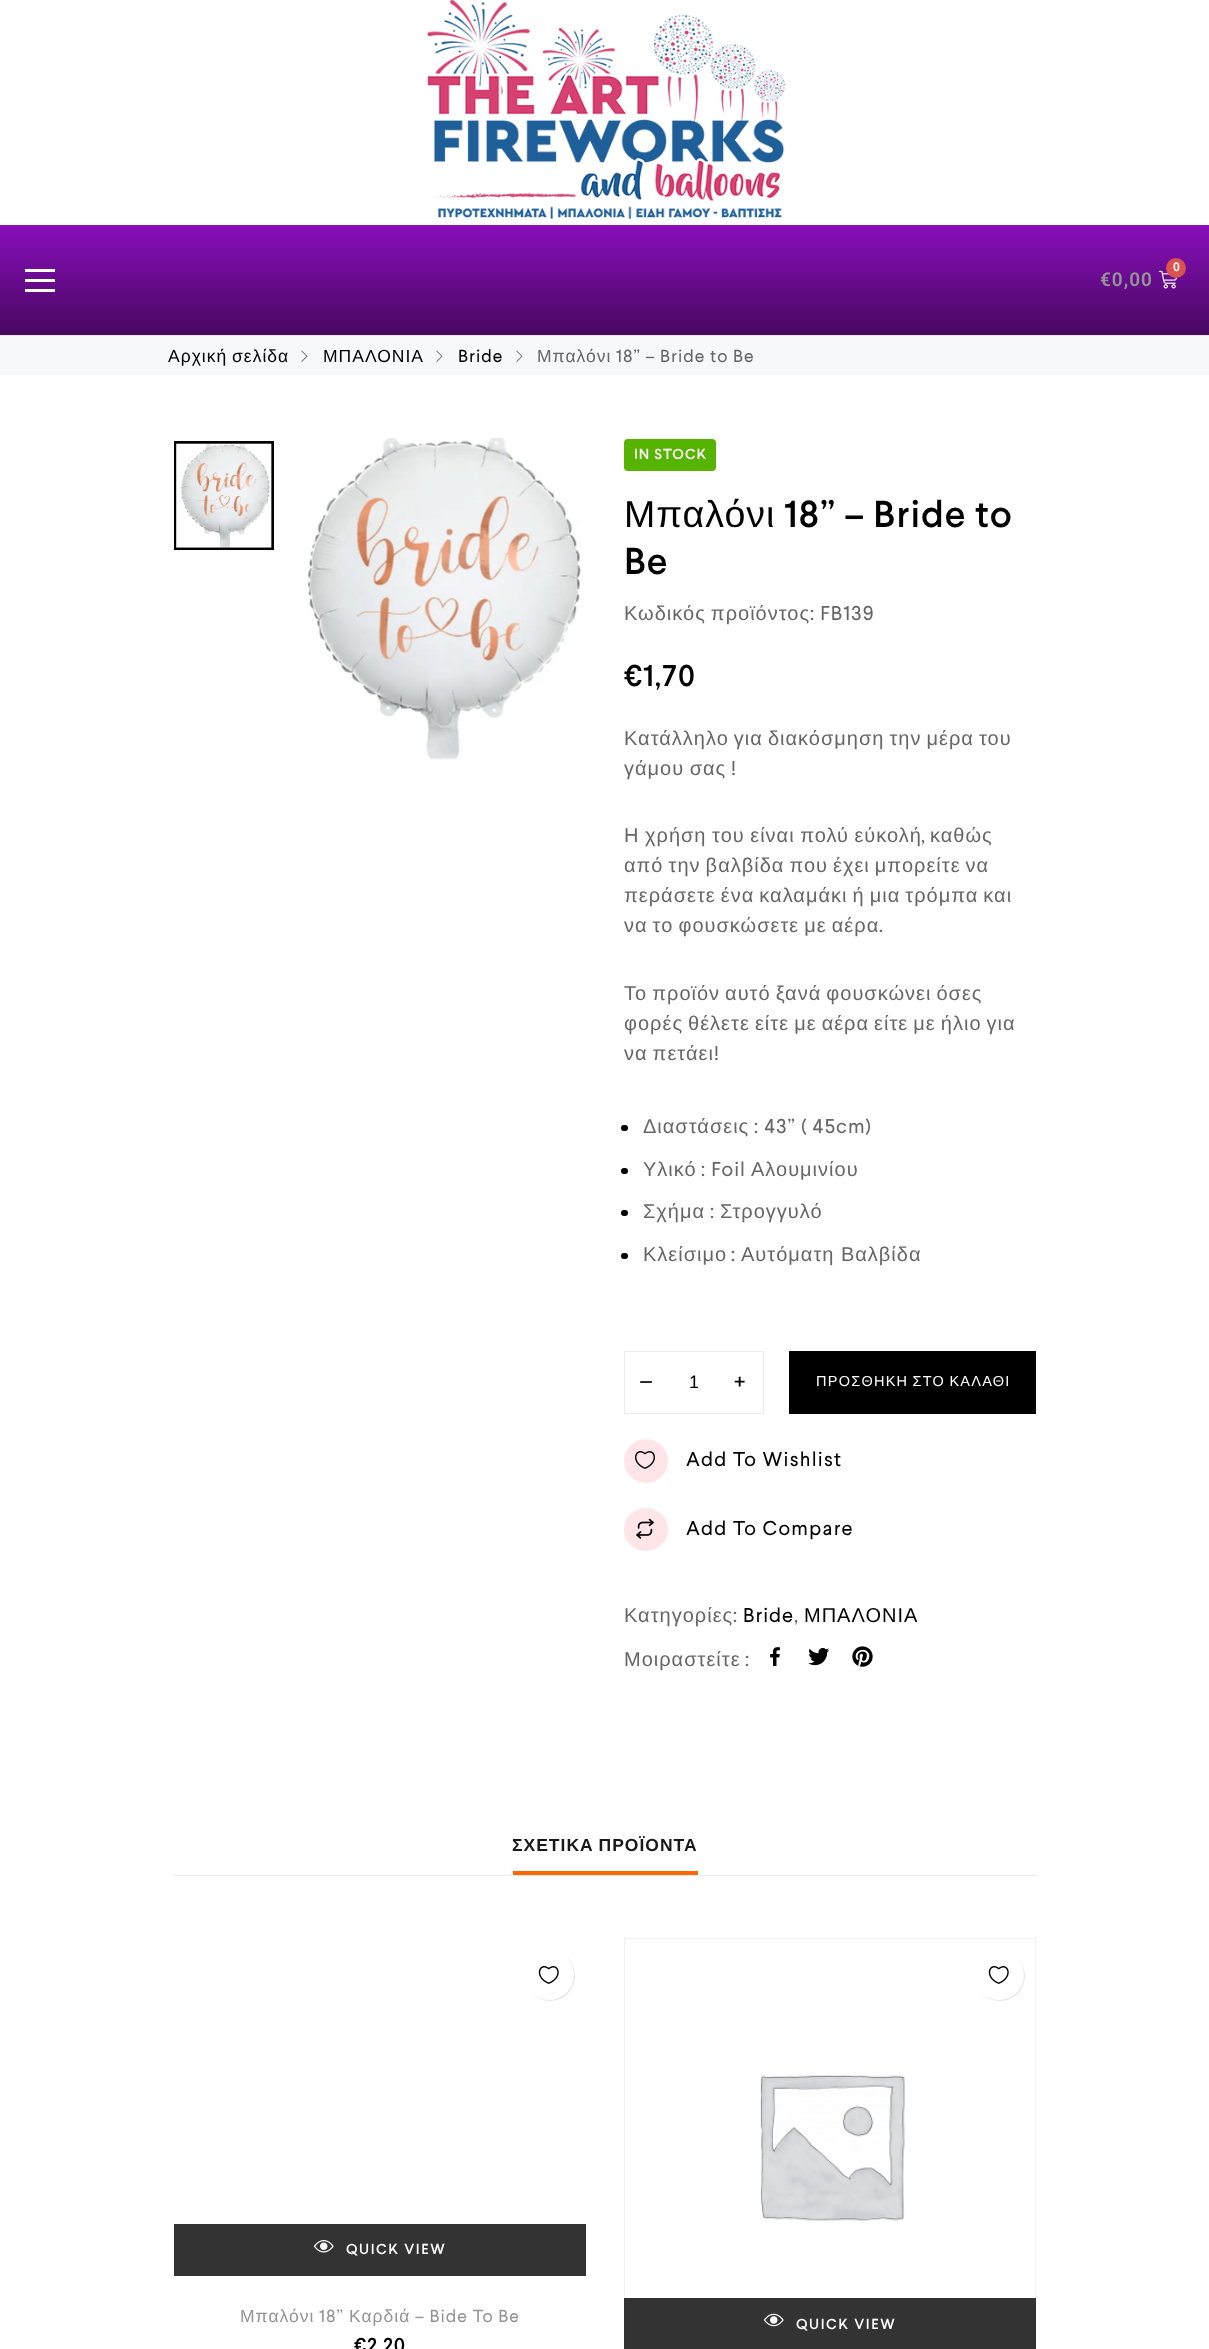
(async () => {
    const canvas = document.querySelector("canvas");
    canvas.width = 1209;
    canvas.height = 2349;
    const context = canvas.getContext("2d");
    context.miterLimit = 4;
    context.fontKerning = "normal";
    function write(s, x, y, font, color) {
        context.font = font;
        context.fillStyle = color;
        context.fillText(s, x, y);
    }
    function block(x, y, w, h, color) {
        context.fillStyle = color;
        context.fillRect(x, y, w, h);
    }
    function card(x, y, w, h, r, color) {
        context.fillStyle = color;
        context.beginPath();
        context.roundRect(x, y, w, h, r);
        context.fill();
    }
    async function photo(src, x, y, w, h) {
        const img = new Image();
        img.src = src;
        await img.decode();
        context.drawImage(img, x, y, w, h);
    }
    let gradient;

    block(0, 0, 1209, 2349, "rgb(255, 255, 255)");
    await photo("media/1.png", 426, 0, 359, 219);
    gradient = context.createLinearGradient(605, 225, 605, 335);
    gradient.addColorStop(0, "rgb(137, 14, 187)");
    gradient.addColorStop(1, "rgb(71, 8, 96)");
    context.fillStyle = gradient;
    context.fillRect(0, 225, 1209, 110);
    block(0, 335, 1209, 1, "rgb(235, 235, 235)");
    block(25, 279, 30, 3, "rgb(255, 255, 255)");
    block(25, 269, 30, 3, "rgb(255, 255, 255)");
    block(25, 289, 30, 3, "rgb(255, 255, 255)");
    await photo("media/2.png", 1159, 270, 18, 19);
    context.fillStyle = "rgb(217, 83, 79)";
    context.beginPath();
    context.arc(1176, 268, 10, 0, Math.PI * 2);
    context.fill();
    context.letterSpacing = "1px";
    write("0", 1173, 271, "600 12px Roboto", "rgb(255, 255, 255)");
    write("€0,00", 1100, 286, "600 19px Roboto", "rgb(149, 149, 149)");
    block(0, 336, 1209, 39, "rgb(246, 248, 250)");
    context.wordSpacing = "-1px";
    write("Αρχική σελίδα", 168, 362, "17.5px Liberation Sans", "rgb(0, 0, 0)");
    await photo("media/3.png", 301, 350, 7, 12);
    context.wordSpacing = "0px";
    write("ΜΠΑΛΟΝΙΑ", 323, 362, "17.5px Liberation Sans", "rgb(0, 0, 0)");
    await photo("media/3.png", 436, 350, 7, 12);
    write("Bride", 458, 362, "17.5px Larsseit", "rgb(0, 0, 0)");
    await photo("media/3.png", 516, 350, 7, 12);
    write("Μπαλόνι", 537, 362, "17.5px Liberation Sans", "rgb(102, 102, 102)");
    write("18” – Bride to Be", 616, 362, "17.5px Larsseit", "rgb(102, 102, 102)");
    context.strokeStyle = "rgb(0, 0, 0)";
    context.lineWidth = 3;
    context.strokeRect(175.5, 442.5, 97, 106);
    await photo("media/4.png", 176, 443, 96, 105);
    await photo("media/5.png", 307, 438, 274, 322);
    card(624, 439, 92, 32, 4, "rgb(86, 180, 0)");
    write("IN STOCK", 634, 459, "500 14.5px Larsseit", "rgb(255, 255, 255)");
    write("Μπαλόνι", 624, 527, "37.5px Liberation Sans", "rgb(0, 0, 0)");
    write("18” – Bride to", 784, 527, "500 37.5px Larsseit", "rgb(0, 0, 0)");
    write("Be", 624, 574, "500 37.5px Larsseit", "rgb(0, 0, 0)");
    context.wordSpacing = "-1.5px";
    write("Κωδικός προϊόντος", 624, 620, "20px Liberation Sans", "rgb(102, 102, 102)");
    context.wordSpacing = "0px";
    write(": FB139", 810, 620, "20px Larsseit", "rgb(102, 102, 102)");
    write("€1,70", 624, 686, "500 30px Larsseit", "rgb(0, 0, 0)");
    context.wordSpacing = "-1.5px";
    write("Κατάλληλο για διακόσμηση την μέρα του", 624, 745, "20px Liberation Sans", "rgb(102, 102, 102)");
    context.wordSpacing = "-1px";
    write("γάμου σας", 624, 775, "20px Liberation Sans", "rgb(102, 102, 102)");
    context.wordSpacing = "0px";
    write("!", 731, 775, "20px Larsseit", "rgb(102, 102, 102)");
    context.wordSpacing = "-1px";
    write("Η χρήση του είναι πολύ εύκολή", 624, 842, "20px Liberation Sans", "rgb(102, 102, 102)");
    context.wordSpacing = "0px";
    write(",", 921, 842, "20px Larsseit", "rgb(102, 102, 102)");
    write("καθώς", 930, 842, "20px Liberation Sans", "rgb(102, 102, 102)");
    context.wordSpacing = "-1.5px";
    write("από την βαλβίδα που έχει μπορείτε να", 624, 872, "20px Liberation Sans", "rgb(102, 102, 102)");
    write("περάσετε ένα καλαμάκι ή μια τρόμπα και", 624, 902, "20px Liberation Sans", "rgb(102, 102, 102)");
    write("να το φουσκώσετε με αέρα", 624, 932, "20px Liberation Sans", "rgb(102, 102, 102)");
    context.wordSpacing = "0px";
    write(".", 879, 932, "20px Larsseit", "rgb(102, 102, 102)");
    context.wordSpacing = "-1.5px";
    write("Το προϊόν αυτό ξανά φουσκώνει όσες", 624, 1000, "20px Liberation Sans", "rgb(102, 102, 102)");
    write("φορές θέλετε είτε με αέρα είτε με ήλιο για", 624, 1030, "20px Liberation Sans", "rgb(102, 102, 102)");
    write("να πετάει", 624, 1060, "20px Liberation Sans", "rgb(102, 102, 102)");
    context.wordSpacing = "0px";
    write("!", 714, 1060, "20px Larsseit", "rgb(102, 102, 102)");
    card(621, 1125, 7, 6, 3, "rgb(0, 0, 0)");
    write("Διαστάσεις", 643, 1133, "20px Liberation Sans", "rgb(102, 102, 102)");
    write(": 43” ( 45cm)", 754, 1133, "20px Larsseit", "rgb(102, 102, 102)");
    card(621, 1168, 7, 6, 3, "rgb(0, 0, 0)");
    write("Υλικό", 643, 1176, "20px Liberation Sans", "rgb(102, 102, 102)");
    write(": Foil", 701, 1176, "20px Larsseit", "rgb(102, 102, 102)");
    write("Αλουμινίου", 751, 1176, "20px Liberation Sans", "rgb(102, 102, 102)");
    card(621, 1210, 7, 6, 3, "rgb(0, 0, 0)");
    write("Σχήμα", 643, 1218, "20px Liberation Sans", "rgb(102, 102, 102)");
    write(":", 710, 1218, "20px Larsseit", "rgb(102, 102, 102)");
    write("Στρογγυλό", 720, 1218, "20px Liberation Sans", "rgb(102, 102, 102)");
    card(621, 1253, 7, 6, 3, "rgb(0, 0, 0)");
    write("Κλείσιμο", 643, 1261, "20px Liberation Sans", "rgb(102, 102, 102)");
    write(":", 731, 1261, "20px Larsseit", "rgb(102, 102, 102)");
    write("Αυτόματη Βαλβίδα", 741, 1261, "20px Liberation Sans", "rgb(102, 102, 102)");
    context.strokeStyle = "rgb(235, 235, 235)";
    context.lineWidth = 1;
    context.strokeRect(624.5, 1351.5, 139, 62);
    write("−", 639, 1390, "24px Liberation Sans", "rgb(0, 0, 0)");
    context.letterSpacing = "0px";
    write("1", 689, 1388, "18px Liberation Sans", "rgb(0, 0, 0)");
    context.letterSpacing = "1px";
    write("+", 734, 1390, "24px Larsseit", "rgb(0, 0, 0)");
    block(789, 1351, 247, 63, "rgb(0, 0, 0)");
    context.letterSpacing = "1.25px";
    context.wordSpacing = "-1px";
    write("ΠΡΟΣΘΗΚΗ ΣΤΟ ΚΑΛΑΘΙ", 816, 1386, "14.5px Liberation Sans", "rgb(255, 255, 255)");
    context.fillStyle = "rgb(255, 229, 231)";
    context.beginPath();
    context.arc(646, 1461, 22, 0, Math.PI * 2);
    context.fill();
    await photo("media/6.png", 635, 1451, 20, 18);
    context.wordSpacing = "0px";
    write("Add To Wishlist", 686, 1466, "20px Larsseit", "rgb(0, 0, 0)");
    card(624, 1508, 44, 43, 21.5, "rgb(255, 229, 231)");
    await photo("media/7.png", 636, 1518, 18, 21);
    write("Add To Compare", 686, 1535, "20px Larsseit", "rgb(0, 0, 0)");
    context.letterSpacing = "1px";
    write("Κατηγορίες", 624, 1622, "20px Liberation Sans", "rgb(102, 102, 102)");
    write(":", 733, 1622, "20px Larsseit", "rgb(102, 102, 102)");
    write("Bride", 743, 1622, "20px Larsseit", "rgb(0, 0, 0)");
    write(",", 794, 1622, "20px Larsseit", "rgb(102, 102, 102)");
    write("ΜΠΑΛΟΝΙΑ", 804, 1622, "20px Liberation Sans", "rgb(0, 0, 0)");
    write("Μοιραστείτε", 624, 1666, "20px Liberation Sans", "rgb(102, 102, 102)");
    write(":", 745, 1666, "20px Larsseit", "rgb(102, 102, 102)");
    await photo("media/8.png", 770, 1647, 10, 19);
    await photo("media/9.png", 808, 1648, 22, 18);
    await photo("media/10.png", 852, 1646, 21, 21);
    block(513, 1871, 185, 4, "rgb(252, 103, 2)");
    context.wordSpacing = "-1px";
    write("ΣΧΕΤΙΚΑ ΠΡΟΪΟΝΤΑ", 512, 1851, "bold 17.5px Liberation Sans", "rgb(25, 25, 25)");
    block(174, 1875, 862, 1, "rgb(235, 235, 235)");
    context.fillStyle = "rgba(0, 0, 0, 0.1)";
    context.filter = "blur(0.5px)";
    context.beginPath();
    context.roundRect(525, 1951, 50, 50, 25);
    context.fill();
    context.filter = "none";
    context.fillStyle = "rgb(255, 255, 255)";
    context.beginPath();
    context.arc(549, 1975, 25, 0, Math.PI * 2);
    context.fill();
    await photo("media/11.png", 538, 1966, 21, 18);
    block(174, 2224, 412, 52, "rgb(51, 51, 51)");
    await photo("media/12.png", 313, 2240, 21, 13);
    context.letterSpacing = "1.6px";
    context.wordSpacing = "0px";
    write("QUICK VIEW", 346, 2254, "500 14.5px Larsseit", "rgb(255, 255, 255)");
    context.letterSpacing = "1px";
    write("Μπαλόνι", 240, 2322, "17.5px Liberation Sans", "rgb(149, 149, 149)");
    write("18”", 319, 2322, "17.5px Larsseit", "rgb(149, 149, 149)");
    write("Καρδιά", 349, 2322, "17.5px Liberation Sans", "rgb(149, 149, 149)");
    write("– Bide To Be", 415, 2322, "17.5px Larsseit", "rgb(149, 149, 149)");
    write("€2,20", 354, 2352, "500 20px Larsseit", "rgb(0, 0, 0)");
    context.strokeStyle = "rgb(242, 242, 242)";
    context.strokeRect(624.5, 1938.5, 411, 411);
    await photo("media/13.png", 760, 2074, 145, 147);
    context.fillStyle = "rgba(0, 0, 0, 0.1)";
    context.filter = "blur(0.5px)";
    context.beginPath();
    context.roundRect(975, 1951, 50, 50, 25);
    context.fill();
    context.filter = "none";
    context.fillStyle = "rgb(255, 255, 255)";
    context.beginPath();
    context.arc(999, 1975, 25, 0, Math.PI * 2);
    context.fill();
    await photo("media/11.png", 988, 1966, 21, 18);
    block(624, 2298, 412, 51, "rgba(0, 0, 0, 0.8)");
    await photo("media/14.png", 763, 2313, 21, 14);
    context.letterSpacing = "1.6px";
    write("QUICK VIEW", 796, 2329, "500 14.5px Larsseit", "rgb(255, 255, 255)");
})();
